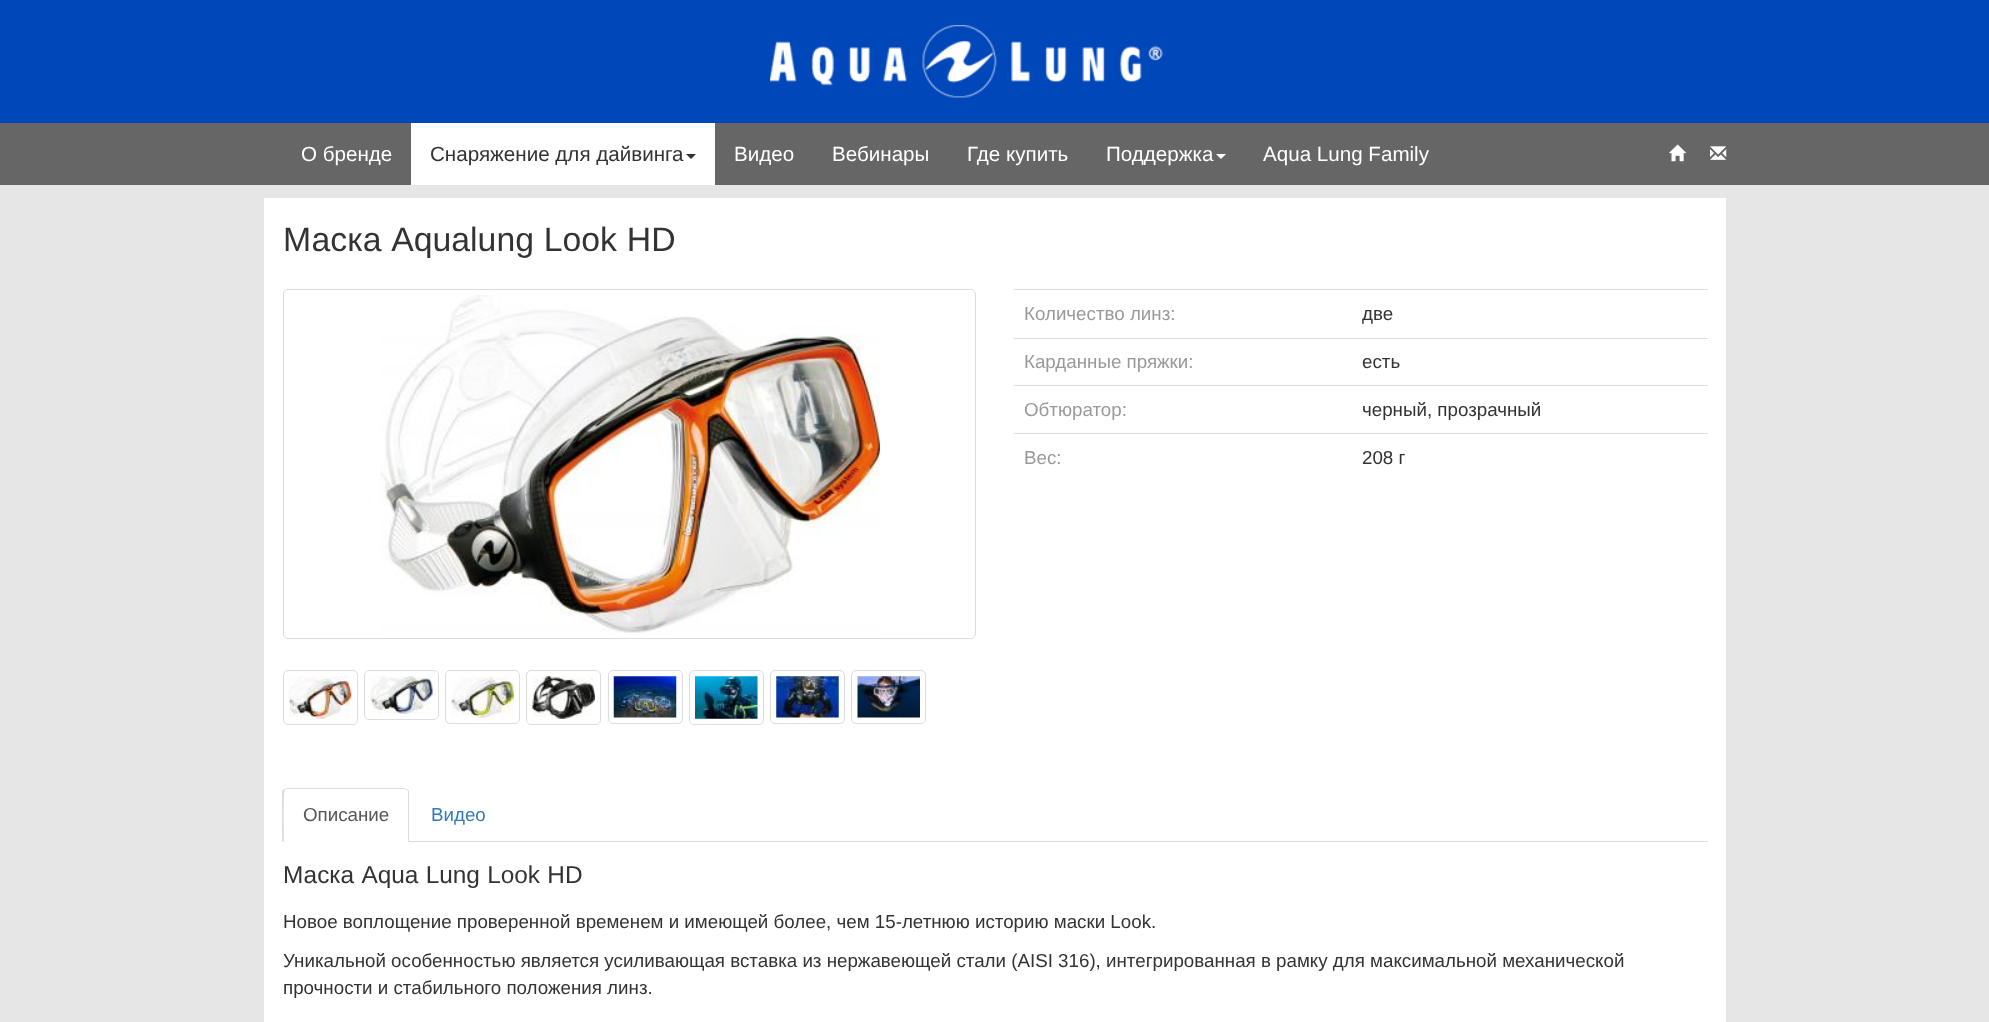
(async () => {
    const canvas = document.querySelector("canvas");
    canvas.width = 1989;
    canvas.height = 1022;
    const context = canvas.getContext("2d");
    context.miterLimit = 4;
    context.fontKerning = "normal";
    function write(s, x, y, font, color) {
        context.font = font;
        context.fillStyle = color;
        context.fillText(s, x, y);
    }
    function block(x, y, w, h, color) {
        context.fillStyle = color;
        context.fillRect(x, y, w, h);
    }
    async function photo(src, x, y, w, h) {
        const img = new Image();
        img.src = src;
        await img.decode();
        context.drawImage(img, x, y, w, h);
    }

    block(0, 0, 1989, 1022, "rgb(230, 230, 230)");
    block(0, 0, 1989, 123, "rgb(0, 71, 186)");
    await photo("media/1.png", 770, 25, 393, 73);
    block(0, 123, 1989, 62, "rgb(102, 102, 102)");
    write("О бренде", 301, 161, "20.6px Liberation Sans", "rgb(255, 255, 255)");
    block(411, 123, 304, 62, "rgb(255, 255, 255)");
    write("Снаряжение для дайвинга", 430, 161, "20.6px Liberation Sans", "rgb(51, 51, 51)");
    context.beginPath();
    context.moveTo(686, 154);
    context.lineTo(696, 154);
    context.lineTo(691, 159);
    context.closePath();
    context.fill();
    write("Видео", 734, 161, "20.6px Liberation Sans", "rgb(255, 255, 255)");
    write("Вебинары", 832, 161, "20.6px Liberation Sans", "rgb(255, 255, 255)");
    write("Где купить", 967, 161, "20.6px Liberation Sans", "rgb(255, 255, 255)");
    write("Поддержка", 1106, 161, "20.6px Liberation Sans", "rgb(255, 255, 255)");
    context.beginPath();
    context.moveTo(1216, 154);
    context.lineTo(1226, 154);
    context.lineTo(1221, 159);
    context.closePath();
    context.fill();
    write("Aqua Lung Family", 1263, 161, "20.6px Liberation Sans", "rgb(255, 255, 255)");
    await photo("media/2.png", 1669, 144, 18, 18);
    await photo("media/3.png", 1710, 146, 17, 14);
    block(264, 198, 1462, 824, "rgb(255, 255, 255)");
    context.wordSpacing = "0.5px";
    write("Маска Aqualung Look HD", 283, 251, "33.75px Liberation Sans", "rgb(51, 51, 51)");
    context.beginPath();
    context.roundRect(283.5, 289.5, 692, 349, 4.5);
    context.strokeStyle = "rgb(221, 221, 221)";
    context.stroke();
    await photo("media/4.png", 380, 295, 500, 338);
    context.beginPath();
    context.roundRect(283.5, 670.5, 74, 54, 4.5);
    context.stroke();
    await photo("media/5.png", 288, 676, 64, 43);
    context.beginPath();
    context.roundRect(364.5, 670.5, 74, 49, 4.5);
    context.stroke();
    await photo("media/6.png", 370, 676, 63, 38);
    context.beginPath();
    context.roundRect(445.5, 670.5, 74, 53, 4.5);
    context.stroke();
    await photo("media/7.png", 451, 676, 63, 42);
    context.beginPath();
    context.roundRect(526.5, 670.5, 74, 54, 4.5);
    context.stroke();
    await photo("media/8.png", 532, 676, 63, 43);
    context.beginPath();
    context.roundRect(608.5, 670.5, 74, 53, 4.5);
    context.stroke();
    await photo("media/9.png", 613, 676, 64, 42);
    context.beginPath();
    context.roundRect(689.5, 670.5, 74, 54, 4.5);
    context.stroke();
    await photo("media/10.png", 695, 676, 63, 43);
    context.beginPath();
    context.roundRect(770.5, 670.5, 74, 53, 4.5);
    context.stroke();
    await photo("media/11.png", 776, 676, 63, 42);
    context.beginPath();
    context.roundRect(851.5, 670.5, 74, 53, 4.5);
    context.stroke();
    await photo("media/12.png", 857, 676, 63, 42);
    context.wordSpacing = "0px";
    write("Количество линз:", 1024, 320, "18.75px Liberation Sans", "rgb(153, 153, 153)");
    block(1014, 289, 694, 1, "rgb(221, 221, 221)");
    write("две", 1362, 320, "18.75px Liberation Sans", "rgb(51, 51, 51)");
    write("Карданные пряжки:", 1024, 368, "18.75px Liberation Sans", "rgb(153, 153, 153)");
    block(1014, 338, 694, 1, "rgb(221, 221, 221)");
    write("есть", 1362, 368, "18.75px Liberation Sans", "rgb(51, 51, 51)");
    write("Обтюратор:", 1024, 416, "18.75px Liberation Sans", "rgb(153, 153, 153)");
    block(1014, 385, 694, 1, "rgb(221, 221, 221)");
    write("черный, прозрачный", 1362, 416, "18.75px Liberation Sans", "rgb(51, 51, 51)");
    write("Вес:", 1024, 464, "18.75px Liberation Sans", "rgb(153, 153, 153)");
    block(1014, 433, 694, 1, "rgb(221, 221, 221)");
    write("208 г", 1362, 464, "18.75px Liberation Sans", "rgb(51, 51, 51)");
    block(409, 841, 1299, 1, "rgb(221, 221, 221)");
    context.beginPath();
    context.moveTo(288, 788);
    context.lineTo(284, 789);
    context.lineTo(285, 790);
    context.bezierCurveTo(285, 789, 286, 789, 288, 789);
    context.lineTo(404, 789);
    context.lineTo(407, 790);
    context.lineTo(407, 789);
    context.lineTo(404, 788);
    context.closePath();
    context.fill();
    context.beginPath();
    context.moveTo(407, 789);
    context.lineTo(409, 791);
    context.lineTo(409, 842);
    context.lineTo(407, 841);
    context.lineTo(408, 841);
    context.lineTo(408, 791);
    context.lineTo(407, 790);
    context.closePath();
    context.fill();
    context.beginPath();
    context.moveTo(282, 791);
    context.lineTo(284, 789);
    context.lineTo(285, 790);
    context.bezierCurveTo(283, 791, 284, 835, 284, 841);
    context.lineTo(282, 842);
    context.closePath();
    context.fill();
    write("Описание", 303, 821, "18.75px Liberation Sans", "rgb(85, 85, 85)");
    write("Видео", 431, 821, "18.75px Liberation Sans", "rgb(51, 122, 183)");
    context.wordSpacing = "0.5px";
    write("Маска Aqua Lung Look HD", 283, 883, "24.4px Liberation Sans", "rgb(51, 51, 51)");
    context.wordSpacing = "0px";
    write("Новое воплощение проверенной временем и имеющей более, чем 15-летнюю историю маски Look.", 283, 928, "18.75px Liberation Sans", "rgb(51, 51, 51)");
    write("Уникальной особенностью является усиливающая вставка из нержавеющей стали (AISI 316), интегрированная в рамку для максимальной механической", 283, 967, "18.75px Liberation Sans", "rgb(51, 51, 51)");
    write("прочности и стабильного положения линз.", 283, 994, "18.75px Liberation Sans", "rgb(51, 51, 51)");
})();
